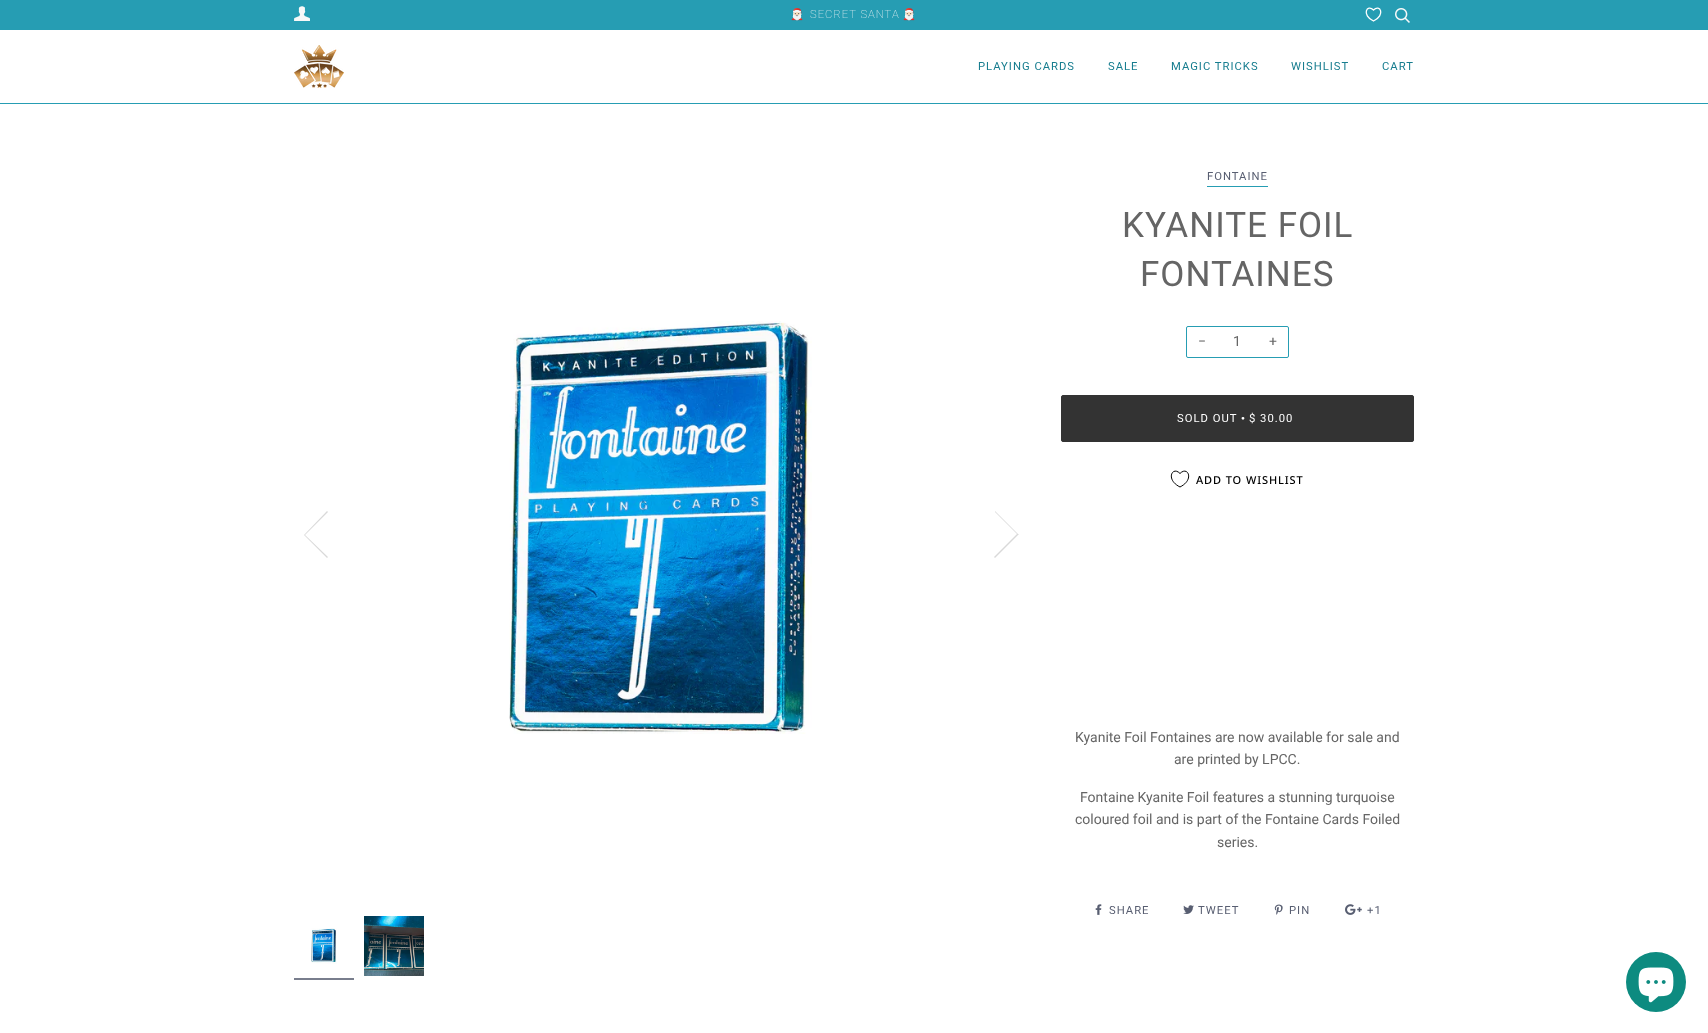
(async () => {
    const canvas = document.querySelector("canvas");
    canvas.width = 1708;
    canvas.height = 1033;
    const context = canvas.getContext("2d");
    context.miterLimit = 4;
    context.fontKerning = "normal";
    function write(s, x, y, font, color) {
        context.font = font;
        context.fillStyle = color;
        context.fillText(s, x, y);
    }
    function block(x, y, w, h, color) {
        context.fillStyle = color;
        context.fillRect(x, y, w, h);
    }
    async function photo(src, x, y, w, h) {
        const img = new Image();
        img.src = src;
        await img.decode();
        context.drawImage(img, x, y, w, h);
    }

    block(0, 0, 1708, 1033, "rgb(255, 255, 255)");
    block(0, 0, 1708, 30, "rgb(38, 157, 179)");
    await photo("media/1.png", 294, 6, 16, 15);
    context.letterSpacing = "1px";
    write("🎅🏻", 790, 18, "11.25px Noto Color Emoji", "rgb(248, 248, 248)");
    write("SECRET SANTA", 810, 18, "100 11.25px Roboto", "rgb(248, 248, 248)");
    write("🎅🏻", 902, 18, "11.25px Noto Color Emoji", "rgb(248, 248, 248)");
    context.beginPath();
    context.moveTo(1373.5, 21);
    context.bezierCurveTo(1361, 15, 1367, 3.5, 1373.5, 10);
    context.bezierCurveTo(1380, 3.5, 1386, 15, 1373.5, 21);
    context.closePath();
    context.strokeStyle = "rgb(255, 255, 255)";
    context.lineWidth = 1.3;
    context.stroke();
    await photo("media/2.png", 1395, 8, 15, 15);
    block(0, 103, 1708, 1, "rgb(38, 157, 179)");
    await photo("media/3.png", 294, 45, 50, 43);
    write("PLAYING CARDS", 978, 70, "11.25px Roboto", "rgb(23, 125, 143)");
    write("SALE", 1108, 70, "11.25px Roboto", "rgb(23, 125, 143)");
    write("MAGIC TRICKS", 1171, 70, "11.25px Roboto", "rgb(23, 125, 143)");
    write("WISHLIST", 1291, 70, "11.25px Roboto", "rgb(23, 125, 143)");
    write("CART", 1382, 70, "11.25px Roboto", "rgb(23, 125, 143)");
    context.fillStyle = "rgb(217, 217, 217)";
    context.beginPath();
    context.moveTo(304, 535);
    context.lineTo(327, 558);
    context.lineTo(328, 557);
    context.lineTo(305, 535);
    context.lineTo(328, 512);
    context.lineTo(327, 511);
    context.closePath();
    context.fill();
    await photo("media/4.png", 509, 321, 303, 413);
    context.beginPath();
    context.moveTo(1018, 534);
    context.lineTo(995, 511);
    context.lineTo(995, 512);
    context.lineTo(1017, 534);
    context.lineTo(994, 557);
    context.lineTo(995, 558);
    context.lineTo(1019, 534);
    context.closePath();
    context.fill();
    await photo("media/5.png", 311, 928, 26, 36);
    block(294, 978, 60, 2, "rgb(121, 126, 141)");
    await photo("media/6.png", 364, 916, 60, 60);
    write("FONTAINE", 1207, 180, "11.25px Roboto", "rgb(88, 94, 113)");
    block(1207, 186, 61, 1, "rgb(38, 157, 179)");
    write("KYANITE FOIL", 1122, 237, "35px Roboto", "rgb(101, 101, 101)");
    write("FONTAINES", 1140, 286, "35px Roboto", "rgb(101, 101, 101)");
    context.beginPath();
    context.roundRect(1186.5, 326.5, 102, 31, 1.5);
    context.strokeStyle = "rgb(38, 157, 179)";
    context.lineWidth = 1;
    context.stroke();
    context.letterSpacing = "0px";
    write("−", 1198, 346, "14px Roboto", "rgb(101, 101, 101)");
    write("1", 1233, 346, "14px Roboto", "rgb(101, 101, 101)");
    write("+", 1269, 346, "14px Roboto", "rgb(101, 101, 101)");
    context.fillStyle = "rgb(51, 51, 51)";
    context.beginPath();
    context.roundRect(1061.5, 395.5, 352, 46, 1.5);
    context.fill();
    context.strokeStyle = "rgb(51, 51, 51)";
    context.stroke();
    context.letterSpacing = "1px";
    write("SOLD OUT", 1177, 422, "11.25px Roboto", "rgb(255, 255, 255)");
    write("•", 1241, 422, "11.25px Liberation Serif", "rgb(255, 255, 255)");
    write("$ 30.00", 1249, 422, "11.25px Roboto", "rgb(255, 255, 255)");
    context.beginPath();
    context.moveTo(1180, 487);
    context.bezierCurveTo(1165, 479.5, 1172.5, 465.5, 1180, 473.5);
    context.bezierCurveTo(1187.5, 465.5, 1195, 479.5, 1180, 487);
    context.closePath();
    context.strokeStyle = "rgb(0, 0, 0)";
    context.stroke();
    context.letterSpacing = "0.9px";
    write("ADD TO WISHLIST", 1196, 484, "500 11px Noto Sans", "rgb(0, 0, 0)");
    context.letterSpacing = "0px";
    write("Kyanite Foil Fontaines are now available for sale and", 1075, 742, "14px Roboto", "rgb(101, 101, 101)");
    write("are printed by LPCC.", 1174, 764, "14px Roboto", "rgb(101, 101, 101)");
    write("Fontaine Kyanite Foil features a stunning turquoise", 1080, 802, "14px Roboto", "rgb(101, 101, 101)");
    write("coloured foil and is part of the Fontaine Cards Foiled", 1075, 824, "14px Roboto", "rgb(101, 101, 101)");
    write("series.", 1217, 847, "14px Roboto", "rgb(101, 101, 101)");
    await photo("media/7.png", 1095, 904, 7, 11);
    context.letterSpacing = "1px";
    write("SHARE", 1109, 914, "11.25px Roboto", "rgb(88, 94, 113)");
    await photo("media/8.png", 1183, 905, 11, 9);
    write("TWEET", 1198, 914, "11.25px Roboto", "rgb(88, 94, 113)");
    await photo("media/9.png", 1274, 904, 9, 11);
    write("PIN", 1289, 914, "11.25px Roboto", "rgb(88, 94, 113)");
    await photo("media/10.png", 1345, 904, 17, 11);
    write("+1", 1367, 914, "11.25px Roboto", "rgb(88, 94, 113)");
    context.fillStyle = "rgb(13, 139, 128)";
    context.beginPath();
    context.arc(1656, 982, 30, 0, Math.PI * 2);
    context.fill();
    await photo("media/11.png", 1638, 967, 36, 36);
})();
